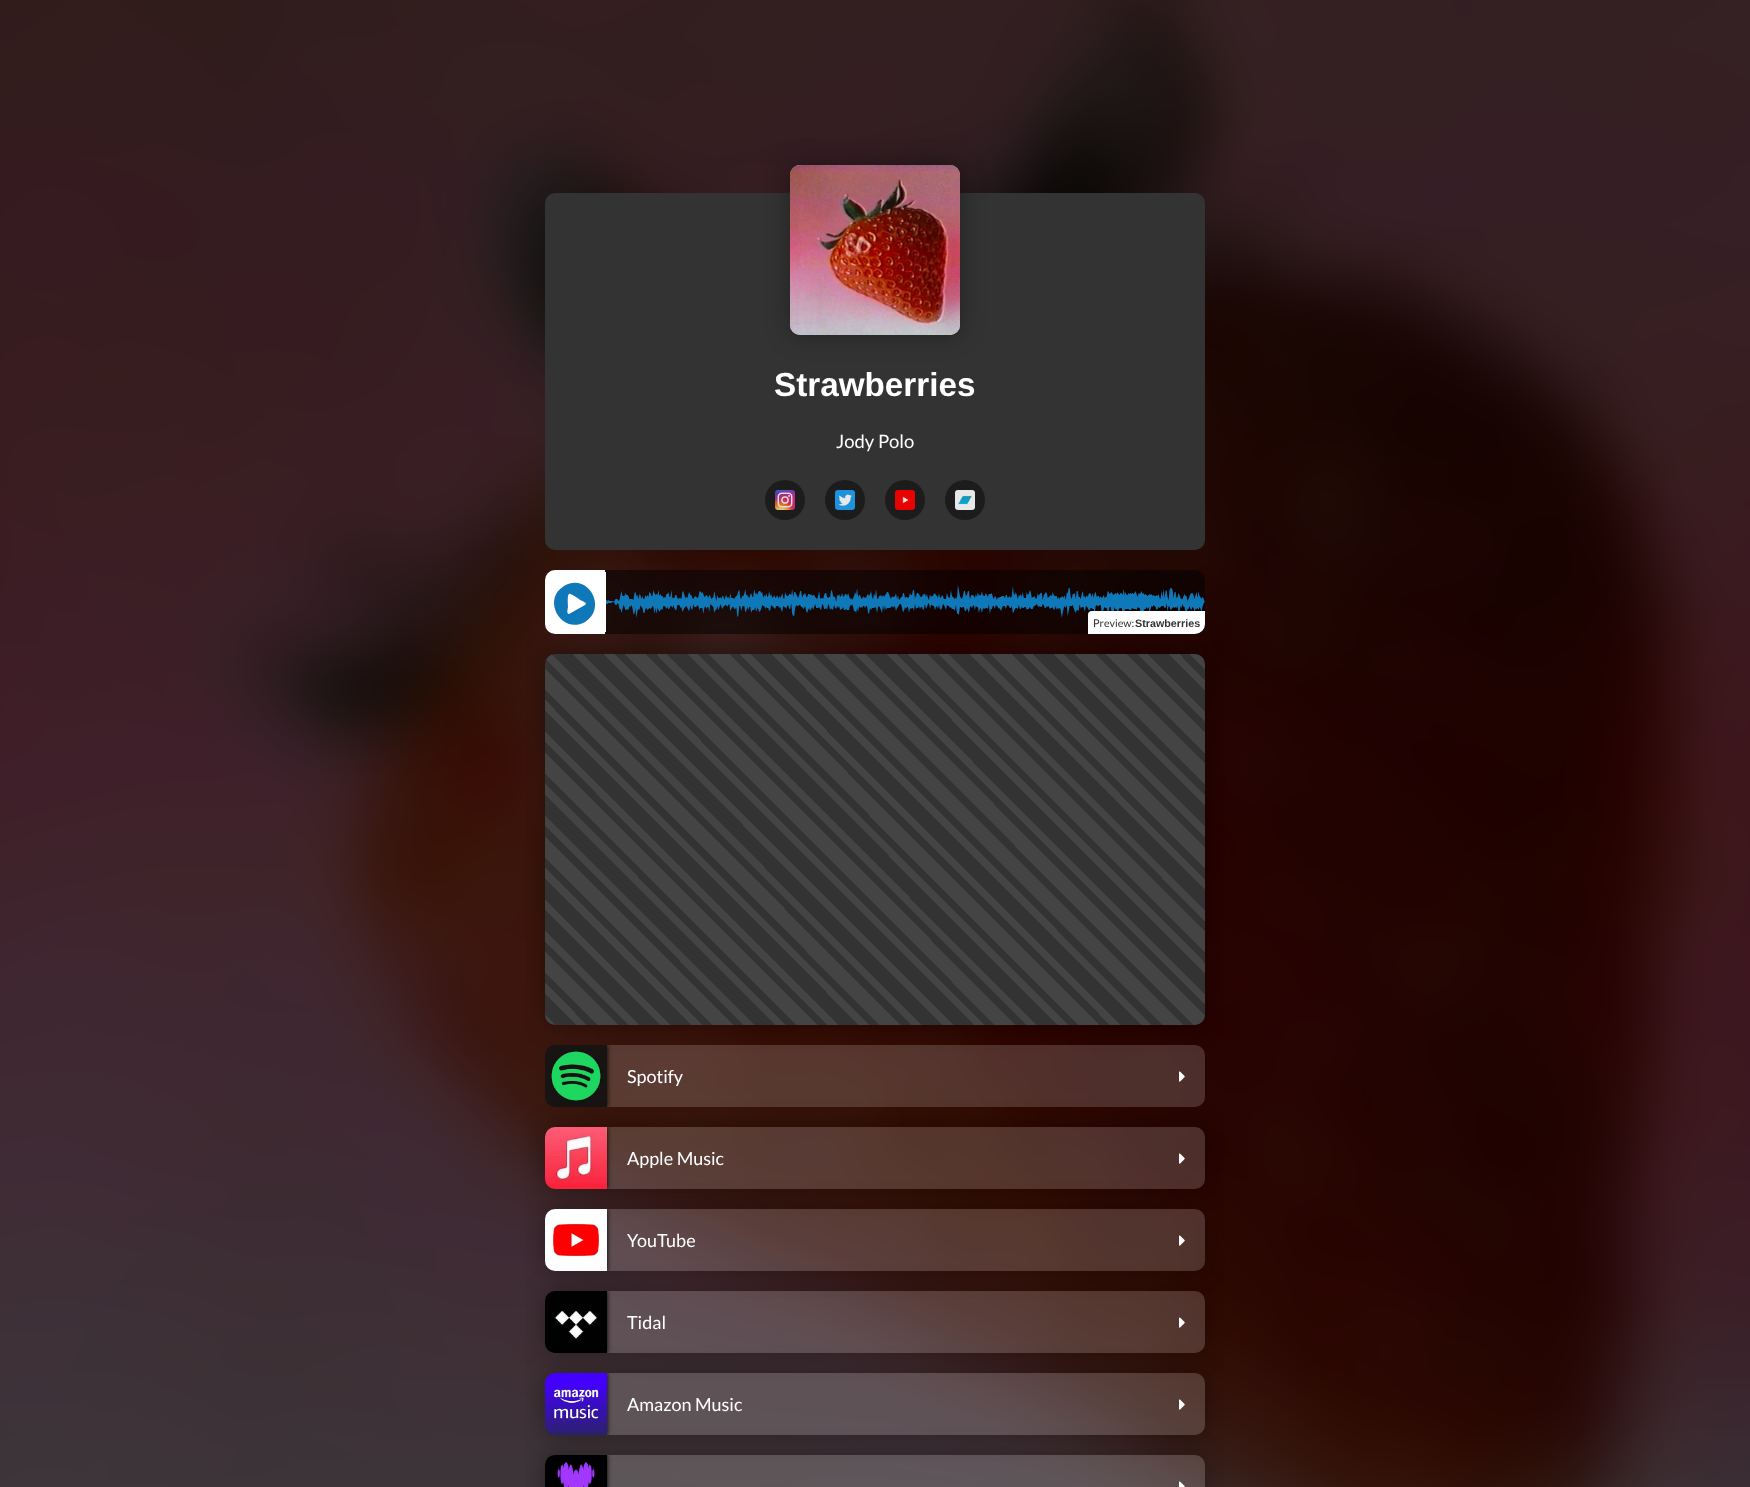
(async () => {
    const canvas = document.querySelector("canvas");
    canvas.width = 1750;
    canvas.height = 1487;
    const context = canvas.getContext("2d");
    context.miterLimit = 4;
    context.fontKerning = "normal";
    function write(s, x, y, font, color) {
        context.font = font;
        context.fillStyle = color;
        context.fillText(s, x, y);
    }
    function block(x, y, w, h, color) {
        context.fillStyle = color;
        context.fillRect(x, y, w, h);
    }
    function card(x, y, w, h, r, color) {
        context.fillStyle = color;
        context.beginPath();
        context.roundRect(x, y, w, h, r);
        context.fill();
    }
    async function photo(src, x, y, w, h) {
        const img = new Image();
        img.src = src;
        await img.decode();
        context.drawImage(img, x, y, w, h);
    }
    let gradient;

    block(0, 0, 1750, 1487, "rgb(0, 0, 0)");
    await photo("media/1.png", 0, 0, 1750, 1487);
    card(545, 193, 660, 357, 10, "rgb(51, 51, 51)");
    context.fillStyle = "rgba(0, 0, 0, 0.35)";
    context.filter = "blur(12.5px)";
    context.beginPath();
    context.roundRect(790, 165, 170, 170, 10);
    context.fill();
    context.filter = "none";
    card(790, 165, 170, 170, 10, "rgb(204, 204, 204)");
    await photo("media/2.png", 790, 165, 170, 170);
    write("Strawberries", 774, 396, "bold 33.25px Liberation Sans", "rgb(255, 255, 255)");
    write("Jody Polo", 836, 448, "18.5px Lato", "rgb(255, 255, 255)");
    context.fillStyle = "rgb(28, 28, 28)";
    context.beginPath();
    context.arc(785, 500, 20, 0, Math.PI * 2);
    context.fill();
    await photo("media/3.png", 775, 490, 20, 20);
    context.beginPath();
    context.arc(845, 500, 20, 0, Math.PI * 2);
    context.fill();
    await photo("media/4.png", 835, 490, 20, 20);
    context.beginPath();
    context.arc(905, 500, 20, 0, Math.PI * 2);
    context.fill();
    await photo("media/5.png", 895, 490, 20, 20);
    context.beginPath();
    context.arc(965, 500, 20, 0, Math.PI * 2);
    context.fill();
    await photo("media/6.png", 955, 490, 20, 20);
    context.save();
    context.beginPath();
    context.rect(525, 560, 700, 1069);
    context.clip();
    context.fillStyle = "rgba(0, 0, 0, 0.35)";
    context.filter = "blur(12.5px)";
    context.beginPath();
    context.roundRect(545, 654, 660, 371, 10);
    context.fill();
    context.filter = "none";
    context.restore();
    gradient = context.createLinearGradient(617, 1097, 1141, 574);
    gradient.addColorStop(0, "rgb(68, 68, 68)");
    gradient.addColorStop(0.01, "rgb(68, 68, 68)");
    gradient.addColorStop(0.01, "rgb(51, 51, 51)");
    gradient.addColorStop(0.03, "rgb(51, 51, 51)");
    gradient.addColorStop(0.03, "rgb(68, 68, 68)");
    gradient.addColorStop(0.04, "rgb(68, 68, 68)");
    gradient.addColorStop(0.04, "rgb(51, 51, 51)");
    gradient.addColorStop(0.05, "rgb(51, 51, 51)");
    gradient.addColorStop(0.05, "rgb(68, 68, 68)");
    gradient.addColorStop(0.07, "rgb(68, 68, 68)");
    gradient.addColorStop(0.07, "rgb(51, 51, 51)");
    gradient.addColorStop(0.08, "rgb(51, 51, 51)");
    gradient.addColorStop(0.08, "rgb(68, 68, 68)");
    gradient.addColorStop(0.09, "rgb(68, 68, 68)");
    gradient.addColorStop(0.09, "rgb(51, 51, 51)");
    gradient.addColorStop(0.11, "rgb(51, 51, 51)");
    gradient.addColorStop(0.11, "rgb(68, 68, 68)");
    gradient.addColorStop(0.12, "rgb(68, 68, 68)");
    gradient.addColorStop(0.12, "rgb(51, 51, 51)");
    gradient.addColorStop(0.14, "rgb(51, 51, 51)");
    gradient.addColorStop(0.14, "rgb(68, 68, 68)");
    gradient.addColorStop(0.15, "rgb(68, 68, 68)");
    gradient.addColorStop(0.15, "rgb(51, 51, 51)");
    gradient.addColorStop(0.16, "rgb(51, 51, 51)");
    gradient.addColorStop(0.16, "rgb(68, 68, 68)");
    gradient.addColorStop(0.18, "rgb(68, 68, 68)");
    gradient.addColorStop(0.18, "rgb(51, 51, 51)");
    gradient.addColorStop(0.19, "rgb(51, 51, 51)");
    gradient.addColorStop(0.19, "rgb(68, 68, 68)");
    gradient.addColorStop(0.2, "rgb(68, 68, 68)");
    gradient.addColorStop(0.2, "rgb(51, 51, 51)");
    gradient.addColorStop(0.22, "rgb(51, 51, 51)");
    gradient.addColorStop(0.22, "rgb(68, 68, 68)");
    gradient.addColorStop(0.23, "rgb(68, 68, 68)");
    gradient.addColorStop(0.23, "rgb(51, 51, 51)");
    gradient.addColorStop(0.24, "rgb(51, 51, 51)");
    gradient.addColorStop(0.24, "rgb(68, 68, 68)");
    gradient.addColorStop(0.26, "rgb(68, 68, 68)");
    gradient.addColorStop(0.26, "rgb(51, 51, 51)");
    gradient.addColorStop(0.27, "rgb(51, 51, 51)");
    gradient.addColorStop(0.27, "rgb(68, 68, 68)");
    gradient.addColorStop(0.28, "rgb(68, 68, 68)");
    gradient.addColorStop(0.28, "rgb(51, 51, 51)");
    gradient.addColorStop(0.3, "rgb(51, 51, 51)");
    gradient.addColorStop(0.3, "rgb(68, 68, 68)");
    gradient.addColorStop(0.31, "rgb(68, 68, 68)");
    gradient.addColorStop(0.31, "rgb(51, 51, 51)");
    gradient.addColorStop(0.32, "rgb(51, 51, 51)");
    gradient.addColorStop(0.32, "rgb(68, 68, 68)");
    gradient.addColorStop(0.34, "rgb(68, 68, 68)");
    gradient.addColorStop(0.34, "rgb(51, 51, 51)");
    gradient.addColorStop(0.35, "rgb(51, 51, 51)");
    gradient.addColorStop(0.35, "rgb(68, 68, 68)");
    gradient.addColorStop(0.36, "rgb(68, 68, 68)");
    gradient.addColorStop(0.36, "rgb(51, 51, 51)");
    gradient.addColorStop(0.38, "rgb(51, 51, 51)");
    gradient.addColorStop(0.38, "rgb(68, 68, 68)");
    gradient.addColorStop(0.39, "rgb(68, 68, 68)");
    gradient.addColorStop(0.39, "rgb(51, 51, 51)");
    gradient.addColorStop(0.41, "rgb(51, 51, 51)");
    gradient.addColorStop(0.41, "rgb(68, 68, 68)");
    gradient.addColorStop(0.42, "rgb(68, 68, 68)");
    gradient.addColorStop(0.42, "rgb(51, 51, 51)");
    gradient.addColorStop(0.43, "rgb(51, 51, 51)");
    gradient.addColorStop(0.43, "rgb(68, 68, 68)");
    gradient.addColorStop(0.45, "rgb(68, 68, 68)");
    gradient.addColorStop(0.45, "rgb(51, 51, 51)");
    gradient.addColorStop(0.46, "rgb(51, 51, 51)");
    gradient.addColorStop(0.46, "rgb(68, 68, 68)");
    gradient.addColorStop(0.47, "rgb(68, 68, 68)");
    gradient.addColorStop(0.47, "rgb(51, 51, 51)");
    gradient.addColorStop(0.49, "rgb(51, 51, 51)");
    gradient.addColorStop(0.49, "rgb(68, 68, 68)");
    gradient.addColorStop(0.5, "rgb(68, 68, 68)");
    gradient.addColorStop(0.5, "rgb(51, 51, 51)");
    gradient.addColorStop(0.51, "rgb(51, 51, 51)");
    gradient.addColorStop(0.51, "rgb(68, 68, 68)");
    gradient.addColorStop(0.53, "rgb(68, 68, 68)");
    gradient.addColorStop(0.53, "rgb(51, 51, 51)");
    gradient.addColorStop(0.54, "rgb(51, 51, 51)");
    gradient.addColorStop(0.54, "rgb(68, 68, 68)");
    gradient.addColorStop(0.55, "rgb(68, 68, 68)");
    gradient.addColorStop(0.55, "rgb(51, 51, 51)");
    gradient.addColorStop(0.57, "rgb(51, 51, 51)");
    gradient.addColorStop(0.57, "rgb(68, 68, 68)");
    gradient.addColorStop(0.58, "rgb(68, 68, 68)");
    gradient.addColorStop(0.58, "rgb(51, 51, 51)");
    gradient.addColorStop(0.59, "rgb(51, 51, 51)");
    gradient.addColorStop(0.59, "rgb(68, 68, 68)");
    gradient.addColorStop(0.61, "rgb(68, 68, 68)");
    gradient.addColorStop(0.61, "rgb(51, 51, 51)");
    gradient.addColorStop(0.62, "rgb(51, 51, 51)");
    gradient.addColorStop(0.62, "rgb(68, 68, 68)");
    gradient.addColorStop(0.64, "rgb(68, 68, 68)");
    gradient.addColorStop(0.64, "rgb(51, 51, 51)");
    gradient.addColorStop(0.65, "rgb(51, 51, 51)");
    gradient.addColorStop(0.65, "rgb(68, 68, 68)");
    gradient.addColorStop(0.66, "rgb(68, 68, 68)");
    gradient.addColorStop(0.66, "rgb(51, 51, 51)");
    gradient.addColorStop(0.68, "rgb(51, 51, 51)");
    gradient.addColorStop(0.68, "rgb(68, 68, 68)");
    gradient.addColorStop(0.69, "rgb(68, 68, 68)");
    gradient.addColorStop(0.69, "rgb(51, 51, 51)");
    gradient.addColorStop(0.7, "rgb(51, 51, 51)");
    gradient.addColorStop(0.7, "rgb(68, 68, 68)");
    gradient.addColorStop(0.72, "rgb(68, 68, 68)");
    gradient.addColorStop(0.72, "rgb(51, 51, 51)");
    gradient.addColorStop(0.73, "rgb(51, 51, 51)");
    gradient.addColorStop(0.73, "rgb(68, 68, 68)");
    gradient.addColorStop(0.74, "rgb(68, 68, 68)");
    gradient.addColorStop(0.74, "rgb(51, 51, 51)");
    gradient.addColorStop(0.76, "rgb(51, 51, 51)");
    gradient.addColorStop(0.76, "rgb(68, 68, 68)");
    gradient.addColorStop(0.77, "rgb(68, 68, 68)");
    gradient.addColorStop(0.77, "rgb(51, 51, 51)");
    gradient.addColorStop(0.78, "rgb(51, 51, 51)");
    gradient.addColorStop(0.78, "rgb(68, 68, 68)");
    gradient.addColorStop(0.8, "rgb(68, 68, 68)");
    gradient.addColorStop(0.8, "rgb(51, 51, 51)");
    gradient.addColorStop(0.81, "rgb(51, 51, 51)");
    gradient.addColorStop(0.81, "rgb(68, 68, 68)");
    gradient.addColorStop(0.82, "rgb(68, 68, 68)");
    gradient.addColorStop(0.82, "rgb(51, 51, 51)");
    gradient.addColorStop(0.84, "rgb(51, 51, 51)");
    gradient.addColorStop(0.84, "rgb(68, 68, 68)");
    gradient.addColorStop(0.85, "rgb(68, 68, 68)");
    gradient.addColorStop(0.85, "rgb(51, 51, 51)");
    gradient.addColorStop(0.86, "rgb(51, 51, 51)");
    gradient.addColorStop(0.86, "rgb(68, 68, 68)");
    gradient.addColorStop(0.88, "rgb(68, 68, 68)");
    gradient.addColorStop(0.88, "rgb(51, 51, 51)");
    gradient.addColorStop(0.89, "rgb(51, 51, 51)");
    gradient.addColorStop(0.89, "rgb(68, 68, 68)");
    gradient.addColorStop(0.91, "rgb(68, 68, 68)");
    gradient.addColorStop(0.91, "rgb(51, 51, 51)");
    gradient.addColorStop(0.92, "rgb(51, 51, 51)");
    gradient.addColorStop(0.92, "rgb(68, 68, 68)");
    gradient.addColorStop(0.93, "rgb(68, 68, 68)");
    gradient.addColorStop(0.93, "rgb(51, 51, 51)");
    gradient.addColorStop(0.95, "rgb(51, 51, 51)");
    gradient.addColorStop(0.95, "rgb(68, 68, 68)");
    gradient.addColorStop(0.96, "rgb(68, 68, 68)");
    gradient.addColorStop(0.96, "rgb(51, 51, 51)");
    gradient.addColorStop(0.97, "rgb(51, 51, 51)");
    gradient.addColorStop(0.97, "rgb(68, 68, 68)");
    gradient.addColorStop(0.99, "rgb(68, 68, 68)");
    gradient.addColorStop(0.99, "rgb(51, 51, 51)");
    gradient.addColorStop(1, "rgb(51, 51, 51)");
    context.fillStyle = gradient;
    context.beginPath();
    context.roundRect(545, 654, 660, 371, 10);
    context.fill();
    context.fillStyle = "rgb(255, 255, 255)";
    context.beginPath();
    context.roundRect(545, 570, 60, 64, [10, 0, 0, 10]);
    context.fill();
    context.fillStyle = "rgb(15, 120, 184)";
    context.beginPath();
    context.moveTo(564, 586);
    context.bezierCurveTo(588, 572, 608, 608, 585, 622);
    context.bezierCurveTo(562, 635, 541, 600, 564, 586);
    context.closePath();
    context.moveTo(585, 605);
    context.bezierCurveTo(589, 603, 580, 600, 580, 600);
    context.bezierCurveTo(578, 598, 570, 593, 569, 594);
    context.bezierCurveTo(567, 595, 568, 605, 568, 607);
    context.bezierCurveTo(568, 608, 566, 614, 569, 614);
    context.closePath();
    context.fill();
    context.fillStyle = "rgba(0, 0, 0, 0.5)";
    context.beginPath();
    context.roundRect(605, 570, 600, 64, [0, 10, 10, 0]);
    context.fill();
    block(605, 572, 1, 60, "rgb(255, 255, 255)");
    await photo("media/7.png", 606, 585, 599, 33);
    context.beginPath();
    context.roundRect(1088, 611, 117, 23, [4, 0, 10, 0]);
    context.fill();
    write("Preview:", 1093, 627, "10.75px Lato", "rgb(51, 51, 51)");
    write("Strawberries", 1135, 627, "bold 10.75px Liberation Sans", "rgb(51, 51, 51)");
    card(545, 1045, 660, 62, 10, "rgba(255, 255, 255, 0.17)");
    context.save();
    context.beginPath();
    context.roundRect(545, 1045, 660, 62, 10);
    context.clip();
    context.fillStyle = "rgb(0, 0, 0)";
    context.filter = "blur(2.5px)";
    context.beginPath();
    context.rect(545, 1045, 62, 62);
    context.fill();
    context.filter = "none";
    context.restore();
    await photo("media/8.png", 545, 1045, 62, 62);
    write("Spotify", 627, 1083, "18px Lato", "rgb(255, 255, 255)");
    await photo("media/9.png", 1179, 1071, 6, 11);
    context.save();
    context.beginPath();
    context.rect(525, 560, 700, 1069);
    context.clip();
    context.beginPath();
    context.moveTo(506, 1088);
    context.lineTo(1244, 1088);
    context.lineTo(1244, 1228);
    context.lineTo(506, 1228);
    context.closePath();
    context.moveTo(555, 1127);
    context.lineTo(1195, 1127);
    context.bezierCurveTo(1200.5, 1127, 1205, 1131.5, 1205, 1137);
    context.lineTo(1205, 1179);
    context.bezierCurveTo(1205, 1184.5, 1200.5, 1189, 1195, 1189);
    context.lineTo(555, 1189);
    context.bezierCurveTo(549.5, 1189, 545, 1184.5, 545, 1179);
    context.lineTo(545, 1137);
    context.bezierCurveTo(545, 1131.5, 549.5, 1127, 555, 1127);
    context.closePath();
    context.clip("evenodd");
    context.fillStyle = "rgba(0, 0, 0, 0.35)";
    context.filter = "blur(12.5px)";
    context.beginPath();
    context.roundRect(545, 1127, 660, 62, 10);
    context.fill();
    context.filter = "none";
    context.restore();
    card(545, 1127, 660, 62, 10, "rgba(255, 255, 255, 0.17)");
    context.save();
    context.beginPath();
    context.roundRect(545, 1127, 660, 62, 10);
    context.clip();
    context.fillStyle = "rgb(0, 0, 0)";
    context.filter = "blur(2.5px)";
    context.beginPath();
    context.rect(545, 1127, 62, 62);
    context.fill();
    context.filter = "none";
    context.restore();
    await photo("media/10.png", 545, 1127, 62, 62);
    write("Apple Music", 627, 1165, "18px Lato", "rgb(255, 255, 255)");
    await photo("media/11.png", 1179, 1153, 6, 11);
    context.save();
    context.beginPath();
    context.rect(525, 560, 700, 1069);
    context.clip();
    context.beginPath();
    context.moveTo(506, 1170);
    context.lineTo(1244, 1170);
    context.lineTo(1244, 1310);
    context.lineTo(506, 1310);
    context.closePath();
    context.moveTo(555, 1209);
    context.lineTo(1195, 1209);
    context.bezierCurveTo(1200.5, 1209, 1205, 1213.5, 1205, 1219);
    context.lineTo(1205, 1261);
    context.bezierCurveTo(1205, 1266.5, 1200.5, 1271, 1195, 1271);
    context.lineTo(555, 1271);
    context.bezierCurveTo(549.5, 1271, 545, 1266.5, 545, 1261);
    context.lineTo(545, 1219);
    context.bezierCurveTo(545, 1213.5, 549.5, 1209, 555, 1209);
    context.closePath();
    context.clip("evenodd");
    context.fillStyle = "rgba(0, 0, 0, 0.35)";
    context.filter = "blur(12.5px)";
    context.beginPath();
    context.roundRect(545, 1209, 660, 62, 10);
    context.fill();
    context.filter = "none";
    context.restore();
    card(545, 1209, 660, 62, 10, "rgba(255, 255, 255, 0.17)");
    context.save();
    context.beginPath();
    context.roundRect(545, 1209, 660, 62, 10);
    context.clip();
    context.fillStyle = "rgb(0, 0, 0)";
    context.filter = "blur(2.5px)";
    context.beginPath();
    context.rect(545, 1209, 62, 62);
    context.fill();
    context.filter = "none";
    context.restore();
    await photo("media/12.png", 545, 1209, 62, 62);
    write("YouTube", 627, 1247, "18px Lato", "rgb(255, 255, 255)");
    await photo("media/13.png", 1179, 1235, 6, 11);
    context.save();
    context.beginPath();
    context.rect(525, 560, 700, 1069);
    context.clip();
    context.beginPath();
    context.moveTo(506, 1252);
    context.lineTo(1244, 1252);
    context.lineTo(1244, 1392);
    context.lineTo(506, 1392);
    context.closePath();
    context.moveTo(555, 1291);
    context.lineTo(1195, 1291);
    context.bezierCurveTo(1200.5, 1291, 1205, 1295.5, 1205, 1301);
    context.lineTo(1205, 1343);
    context.bezierCurveTo(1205, 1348.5, 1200.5, 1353, 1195, 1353);
    context.lineTo(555, 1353);
    context.bezierCurveTo(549.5, 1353, 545, 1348.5, 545, 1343);
    context.lineTo(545, 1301);
    context.bezierCurveTo(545, 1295.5, 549.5, 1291, 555, 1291);
    context.closePath();
    context.clip("evenodd");
    context.fillStyle = "rgba(0, 0, 0, 0.35)";
    context.filter = "blur(12.5px)";
    context.beginPath();
    context.roundRect(545, 1291, 660, 62, 10);
    context.fill();
    context.filter = "none";
    context.restore();
    card(545, 1291, 660, 62, 10, "rgba(255, 255, 255, 0.17)");
    context.save();
    context.beginPath();
    context.roundRect(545, 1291, 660, 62, 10);
    context.clip();
    context.fillStyle = "rgb(0, 0, 0)";
    context.filter = "blur(2.5px)";
    context.beginPath();
    context.rect(545, 1291, 62, 62);
    context.fill();
    context.filter = "none";
    context.restore();
    await photo("media/14.png", 545, 1291, 62, 62);
    write("Tidal", 627, 1329, "18px Lato", "rgb(255, 255, 255)");
    await photo("media/15.png", 1179, 1317, 6, 11);
    context.save();
    context.beginPath();
    context.rect(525, 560, 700, 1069);
    context.clip();
    context.beginPath();
    context.moveTo(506, 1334);
    context.lineTo(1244, 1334);
    context.lineTo(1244, 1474);
    context.lineTo(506, 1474);
    context.closePath();
    context.moveTo(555, 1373);
    context.lineTo(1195, 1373);
    context.bezierCurveTo(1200.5, 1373, 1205, 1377.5, 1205, 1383);
    context.lineTo(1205, 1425);
    context.bezierCurveTo(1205, 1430.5, 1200.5, 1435, 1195, 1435);
    context.lineTo(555, 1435);
    context.bezierCurveTo(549.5, 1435, 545, 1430.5, 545, 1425);
    context.lineTo(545, 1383);
    context.bezierCurveTo(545, 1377.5, 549.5, 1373, 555, 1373);
    context.closePath();
    context.clip("evenodd");
    context.fillStyle = "rgba(0, 0, 0, 0.35)";
    context.filter = "blur(12.5px)";
    context.beginPath();
    context.roundRect(545, 1373, 660, 62, 10);
    context.fill();
    context.filter = "none";
    context.restore();
    card(545, 1373, 660, 62, 10, "rgba(255, 255, 255, 0.17)");
    context.save();
    context.beginPath();
    context.roundRect(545, 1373, 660, 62, 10);
    context.clip();
    context.fillStyle = "rgb(0, 0, 0)";
    context.filter = "blur(2.5px)";
    context.beginPath();
    context.rect(545, 1373, 62, 62);
    context.fill();
    context.filter = "none";
    context.restore();
    await photo("media/16.png", 545, 1373, 62, 62);
    write("Amazon Music", 627, 1411, "18px Lato", "rgb(255, 255, 255)");
    await photo("media/17.png", 1179, 1399, 6, 11);
    context.save();
    context.beginPath();
    context.rect(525, 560, 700, 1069);
    context.clip();
    context.beginPath();
    context.moveTo(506, 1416);
    context.lineTo(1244, 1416);
    context.lineTo(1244, 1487);
    context.lineTo(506, 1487);
    context.closePath();
    context.moveTo(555, 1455);
    context.lineTo(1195, 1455);
    context.bezierCurveTo(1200.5, 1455, 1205, 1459.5, 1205, 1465);
    context.lineTo(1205, 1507);
    context.bezierCurveTo(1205, 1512.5, 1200.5, 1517, 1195, 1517);
    context.lineTo(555, 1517);
    context.bezierCurveTo(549.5, 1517, 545, 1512.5, 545, 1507);
    context.lineTo(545, 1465);
    context.bezierCurveTo(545, 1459.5, 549.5, 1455, 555, 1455);
    context.closePath();
    context.clip("evenodd");
    context.fillStyle = "rgba(0, 0, 0, 0.35)";
    context.filter = "blur(12.5px)";
    context.beginPath();
    context.roundRect(545, 1455, 660, 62, 10);
    context.fill();
    context.filter = "none";
    context.restore();
    card(545, 1455, 660, 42, 10, "rgba(255, 255, 255, 0.17)");
    context.save();
    context.beginPath();
    context.roundRect(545, 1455, 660, 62, 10);
    context.clip();
    context.fillStyle = "rgb(0, 0, 0)";
    context.filter = "blur(2.5px)";
    context.beginPath();
    context.rect(545, 1455, 62, 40);
    context.fill();
    context.filter = "none";
    context.restore();
    await photo("media/18.png", 545, 1455, 62, 32);
    await photo("media/19.png", 1179, 1481, 6, 6);
})();
